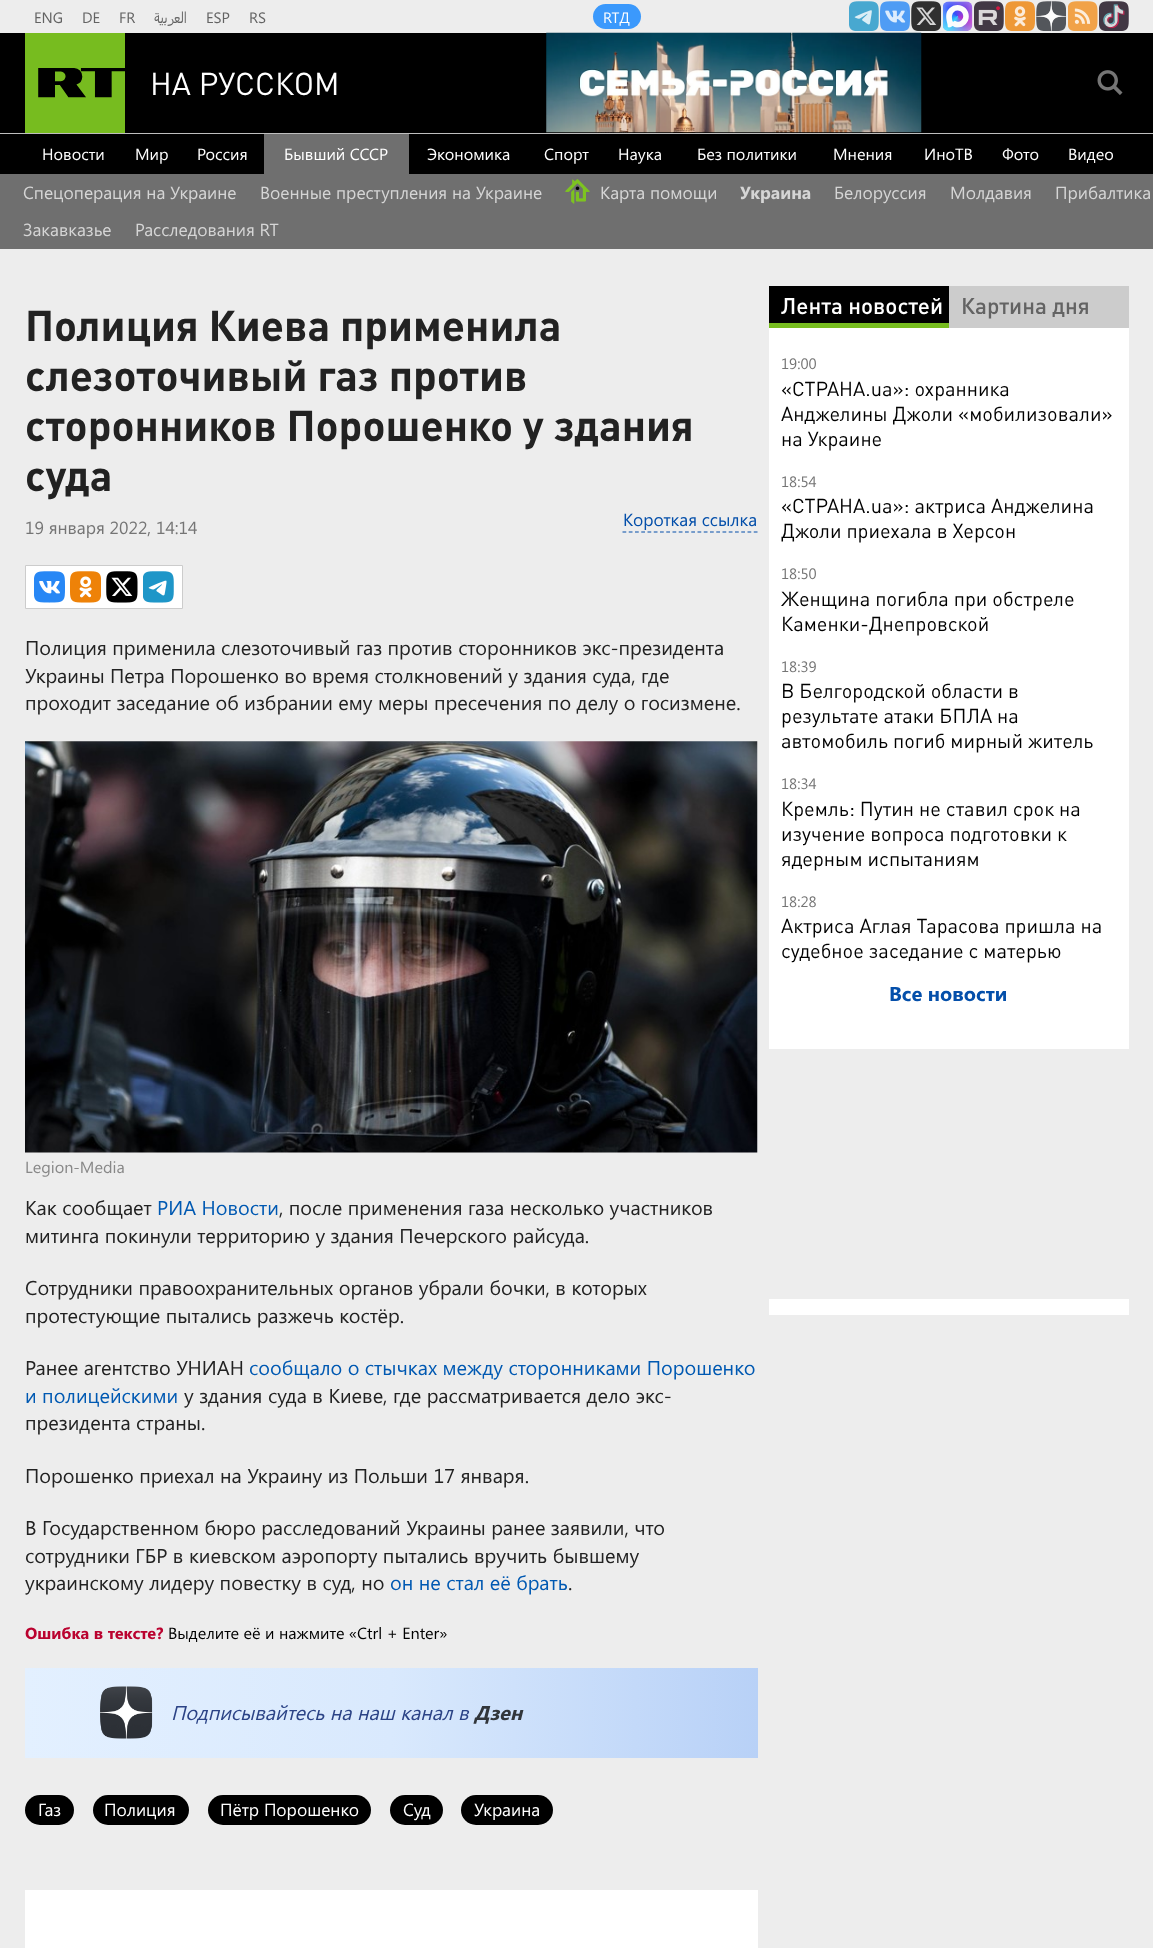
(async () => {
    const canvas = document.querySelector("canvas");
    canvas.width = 1153;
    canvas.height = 1948;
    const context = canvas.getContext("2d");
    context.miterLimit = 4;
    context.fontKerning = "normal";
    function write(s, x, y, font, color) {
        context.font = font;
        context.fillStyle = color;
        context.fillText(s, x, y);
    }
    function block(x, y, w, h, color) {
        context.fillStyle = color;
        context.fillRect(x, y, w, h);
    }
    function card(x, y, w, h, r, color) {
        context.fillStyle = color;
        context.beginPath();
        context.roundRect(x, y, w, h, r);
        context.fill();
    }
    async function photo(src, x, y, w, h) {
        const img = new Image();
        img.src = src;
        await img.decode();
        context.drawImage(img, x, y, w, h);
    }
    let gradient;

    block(0, 0, 1153, 1948, "rgb(0, 0, 0)");
    block(0, 0, 1153, 33, "rgb(237, 237, 237)");
    write("ENG", 34, 23, "15px Segoe UI", "rgb(99, 99, 99)");
    write("DE", 82, 23, "15px Segoe UI", "rgb(99, 99, 99)");
    write("FR", 119, 23, "15px Segoe UI", "rgb(99, 99, 99)");
    context.direction = "rtl";
    write("العربية", 187, 23, "15px Segoe UI", "rgb(99, 99, 99)");
    context.direction = "ltr";
    write("ESP", 206, 23, "15px Segoe UI", "rgb(99, 99, 99)");
    write("RS", 249, 23, "15px Segoe UI", "rgb(99, 99, 99)");
    card(593, 4, 48, 25, 12.5, "rgb(59, 153, 252)");
    write("RTД", 603, 23, "15px Segoe UI", "rgb(255, 255, 255)");
    await photo("media/1.png", 849, 1, 30, 30);
    await photo("media/2.png", 880, 1, 30, 30);
    await photo("media/3.png", 911, 1, 30, 30);
    await photo("media/4.png", 943, 1, 30, 30);
    await photo("media/5.png", 974, 1, 30, 30);
    await photo("media/6.png", 1005, 1, 30, 30);
    await photo("media/7.png", 1036, 1, 30, 30);
    await photo("media/8.png", 1068, 1, 30, 30);
    await photo("media/9.png", 1099, 1, 30, 30);
    block(0, 133, 1153, 1, "rgb(190, 190, 190)");
    block(25, 33, 100, 100, "rgb(119, 188, 31)");
    await photo("media/10.png", 38, 68, 87, 30);
    write("НА РУССКОМ", 150, 95, "31.25px DIN", "rgb(255, 255, 255)");
    await photo("media/11.png", 546, 32, 376, 101);
    await photo("media/12.png", 1097, 70, 26, 25);
    write("Новости", 42, 160, "16.25px Segoe UI", "rgb(255, 255, 255)");
    write("Мир", 135, 160, "16.25px Segoe UI", "rgb(255, 255, 255)");
    write("Россия", 197, 160, "16.25px Segoe UI", "rgb(255, 255, 255)");
    block(264, 134, 145, 40, "rgb(111, 111, 111)");
    write("Бывший СССР", 284, 160, "16.25px Segoe UI", "rgb(255, 255, 255)");
    write("Экономика", 427, 160, "16.25px Segoe UI", "rgb(255, 255, 255)");
    write("Спорт", 544, 160, "16.25px Segoe UI", "rgb(255, 255, 255)");
    write("Наука", 618, 160, "16.25px Segoe UI", "rgb(255, 255, 255)");
    write("Без политики", 697, 160, "16.25px Segoe UI", "rgb(255, 255, 255)");
    write("Мнения", 833, 160, "16.25px Segoe UI", "rgb(255, 255, 255)");
    write("ИноТВ", 924, 160, "16.25px Segoe UI", "rgb(255, 255, 255)");
    write("Фото", 1002, 160, "16.25px Segoe UI", "rgb(255, 255, 255)");
    write("Видео", 1068, 160, "16.25px Segoe UI", "rgb(255, 255, 255)");
    block(0, 174, 1153, 75, "rgb(111, 111, 111)");
    write("Спецоперация на Украине", 23, 199, "17.5px Segoe UI", "rgb(213, 213, 213)");
    write("Военные преступления на Украине", 260, 199, "17.5px Segoe UI", "rgb(213, 213, 213)");
    await photo("media/13.png", 565, 179, 25, 25);
    write("Карта помощи", 600, 199, "17.5px Segoe UI", "rgb(213, 213, 213)");
    write("Украина", 740, 199, "bold 17.5px Segoe UI", "rgb(213, 213, 213)");
    write("Белоруссия", 834, 199, "17.5px Segoe UI", "rgb(213, 213, 213)");
    write("Молдавия", 950, 199, "17.5px Segoe UI", "rgb(213, 213, 213)");
    write("Прибалтика", 1055, 199, "17.5px Segoe UI", "rgb(213, 213, 213)");
    write("Закавказье", 23, 236, "17.5px Segoe UI", "rgb(213, 213, 213)");
    write("Расследования RT", 135, 236, "17.5px Segoe UI", "rgb(213, 213, 213)");
    block(0, 249, 1153, 1699, "rgb(237, 237, 237)");
    write("Полиция Киева применила", 25, 341, "bold 42.5px DIN", "rgb(34, 34, 34)");
    write("слезоточивый газ против", 25, 391, "bold 42.5px DIN", "rgb(34, 34, 34)");
    write("сторонников Порошенко у здания", 25, 441, "bold 42.5px DIN", "rgb(34, 34, 34)");
    write("суда", 25, 491, "bold 42.5px DIN", "rgb(34, 34, 34)");
    write("19 января 2022, 14:14", 25, 534, "17.5px Segoe UI", "rgb(117, 117, 117)");
    write("Короткая ссылка", 623, 526, "17.5px Segoe UI", "rgb(4, 79, 170)");
    context.beginPath();
    context.moveTo(622.5, 532);
    context.lineTo(757.5, 532);
    context.strokeStyle = "rgb(4, 79, 170)";
    context.lineWidth = 1.2;
    context.setLineDash([3.75, 2.5]);
    context.stroke();
    context.fillStyle = "rgb(255, 255, 255)";
    context.beginPath();
    context.rect(25.5, 565.5, 157, 43);
    context.fill();
    context.strokeStyle = "rgb(204, 204, 204)";
    context.lineWidth = 1;
    context.setLineDash([]);
    context.stroke();
    await photo("media/14.png", 34, 571, 31, 32);
    await photo("media/15.png", 70, 571, 31, 32);
    await photo("media/16.png", 106, 571, 32, 32);
    await photo("media/17.png", 143, 571, 31, 32);
    write("Полиция применила слезоточивый газ против сторонников экс-президента", 25, 655, "20px Segoe UI", "rgb(34, 34, 34)");
    write("Украины Петра Порошенко во время столкновений у здания суда, где", 25, 683, "20px Segoe UI", "rgb(34, 34, 34)");
    write("проходит заседание об избрании ему меры пресечения по делу о госизмене.", 25, 710, "20px Segoe UI", "rgb(34, 34, 34)");
    await photo("media/18.png", 25, 741, 733, 412);
    write("Legion-Media", 25, 1173, "16.25px Segoe UI", "rgb(136, 136, 136)");
    write("Как сообщает", 25, 1215, "20px Segoe UI", "rgb(34, 34, 34)");
    write("РИА Новости", 157, 1215, "20px Segoe UI", "rgb(0, 89, 178)");
    write(", после применения газа несколько участников", 279, 1215, "20px Segoe UI", "rgb(34, 34, 34)");
    write("митинга покинули территорию у здания Печерского райсуда.", 25, 1243, "20px Segoe UI", "rgb(34, 34, 34)");
    write("Сотрудники правоохранительных органов убрали бочки, в которых", 25, 1295, "20px Segoe UI", "rgb(34, 34, 34)");
    write("протестующие пытались разжечь костёр.", 25, 1323, "20px Segoe UI", "rgb(34, 34, 34)");
    write("Ранее агентство УНИАН", 25, 1375, "20px Segoe UI", "rgb(34, 34, 34)");
    write("сообщало о стычках между сторонниками Порошенко", 249, 1375, "20px Segoe UI", "rgb(0, 89, 178)");
    write("и полицейскими", 25, 1403, "20px Segoe UI", "rgb(0, 89, 178)");
    write("у здания суда в Киеве, где рассматривается дело экс-", 184, 1403, "20px Segoe UI", "rgb(34, 34, 34)");
    write("президента страны.", 25, 1430, "20px Segoe UI", "rgb(34, 34, 34)");
    write("Порошенко приехал на Украину из Польши 17 января.", 25, 1483, "20px Segoe UI", "rgb(34, 34, 34)");
    write("В Государственном бюро расследований Украины ранее заявили, что", 25, 1535, "20px Segoe UI", "rgb(34, 34, 34)");
    write("сотрудники ГБР в киевском аэропорту пытались вручить бывшему", 25, 1563, "20px Segoe UI", "rgb(34, 34, 34)");
    write("украинскому лидеру повестку в суд, но", 25, 1590, "20px Segoe UI", "rgb(34, 34, 34)");
    write("он не стал её брать", 390, 1590, "20px Segoe UI", "rgb(0, 89, 178)");
    write(".", 568, 1590, "20px Segoe UI", "rgb(34, 34, 34)");
    write("Ошибка в тексте?", 25, 1639, "bold 16.25px Segoe UI", "rgb(186, 2, 47)");
    write("Выделите её и нажмите «Ctrl + Enter»", 168, 1639, "16.25px Segoe UI", "rgb(0, 0, 0)");
    gradient = context.createLinearGradient(25, 1713, 758, 1713);
    gradient.addColorStop(0, "rgb(227, 240, 255)");
    gradient.addColorStop(0.5, "rgb(217, 233, 253)");
    gradient.addColorStop(1, "rgb(184, 209, 247)");
    context.fillStyle = gradient;
    context.fillRect(25, 1668, 733, 90);
    await photo("media/19.png", 100, 1686, 53, 53);
    write("Подписывайтесь на наш канал в", 171, 1720, "italic 20px Segoe UI", "rgb(43, 67, 134)");
    write("Дзен", 474, 1720, "italic bold 20px Segoe UI", "rgb(50, 54, 59)");
    card(25, 1795, 49, 30, 15, "rgb(0, 0, 0)");
    write("Газ", 38, 1816, "17.5px Segoe UI", "rgb(255, 255, 255)");
    card(93, 1795, 96, 30, 15, "rgb(0, 0, 0)");
    write("Полиция", 104, 1816, "17.5px Segoe UI", "rgb(255, 255, 255)");
    card(208, 1795, 163, 30, 15, "rgb(0, 0, 0)");
    write("Пётр Порошенко", 220, 1816, "17.5px Segoe UI", "rgb(255, 255, 255)");
    card(390, 1795, 53, 30, 15, "rgb(0, 0, 0)");
    write("Суд", 403, 1816, "17.5px Segoe UI", "rgb(255, 255, 255)");
    card(461, 1795, 92, 30, 15, "rgb(0, 0, 0)");
    write("Украина", 474, 1816, "17.5px Segoe UI", "rgb(255, 255, 255)");
    context.fillStyle = "rgb(102, 102, 102)";
    context.filter = "blur(0.5px)";
    context.beginPath();
    context.rect(25, 1890, 733, 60);
    context.fill();
    context.filter = "none";
    block(25, 1890, 733, 58, "rgb(255, 255, 255)");
    block(769, 286, 180, 37, "rgb(0, 0, 0)");
    context.fillStyle = "rgb(102, 102, 102)";
    context.filter = "blur(0.5px)";
    context.beginPath();
    context.rect(769, 328, 360, 721);
    context.fill();
    context.filter = "none";
    block(769, 323, 180, 5, "rgb(119, 188, 31)");
    write("Лента новостей", 781, 314, "500 22.5px DIN", "rgb(255, 255, 255)");
    block(949, 286, 180, 42, "rgb(204, 204, 204)");
    write("Картина дня", 961, 314, "500 22.5px DIN", "rgb(99, 99, 99)");
    block(769, 328, 360, 721, "rgb(255, 255, 255)");
    write("19:00", 781, 369, "15px Segoe UI", "rgb(117, 117, 117)");
    write("«СТРАНА.ua»: охранника", 781, 396, "20px DIN", "rgb(0, 0, 0)");
    write("Анджелины Джоли «мобилизовали»", 781, 421, "20px DIN", "rgb(0, 0, 0)");
    write("на Украине", 781, 446, "20px DIN", "rgb(0, 0, 0)");
    write("18:54", 781, 487, "15px Segoe UI", "rgb(117, 117, 117)");
    write("«СТРАНА.ua»: актриса Анджелина", 781, 513, "20px DIN", "rgb(0, 0, 0)");
    write("Джоли приехала в Херсон", 781, 538, "20px DIN", "rgb(0, 0, 0)");
    write("18:50", 781, 579, "15px Segoe UI", "rgb(117, 117, 117)");
    write("Женщина погибла при обстреле", 781, 606, "20px DIN", "rgb(0, 0, 0)");
    write("Каменки-Днепровской", 781, 631, "20px DIN", "rgb(0, 0, 0)");
    write("18:39", 781, 672, "15px Segoe UI", "rgb(117, 117, 117)");
    write("В Белгородской области в", 781, 698, "20px DIN", "rgb(0, 0, 0)");
    write("результате атаки БПЛА на", 781, 723, "20px DIN", "rgb(0, 0, 0)");
    write("автомобиль погиб мирный житель", 781, 748, "20px DIN", "rgb(0, 0, 0)");
    write("18:34", 781, 789, "15px Segoe UI", "rgb(117, 117, 117)");
    write("Кремль: Путин не ставил срок на", 781, 816, "20px DIN", "rgb(0, 0, 0)");
    write("изучение вопроса подготовки к", 781, 841, "20px DIN", "rgb(0, 0, 0)");
    write("ядерным испытаниям", 781, 866, "20px DIN", "rgb(0, 0, 0)");
    write("18:28", 781, 907, "15px Segoe UI", "rgb(117, 117, 117)");
    write("Актриса Аглая Тарасова пришла на", 781, 933, "20px DIN", "rgb(0, 0, 0)");
    write("судебное заседание с матерью", 781, 958, "20px DIN", "rgb(0, 0, 0)");
    write("Все новости", 889, 1001, "bold 20px Segoe UI", "rgb(4, 79, 170)");
    context.fillStyle = "rgb(102, 102, 102)";
    context.filter = "blur(0.5px)";
    context.beginPath();
    context.rect(769, 1299, 360, 16);
    context.fill();
    context.filter = "none";
    block(769, 1299, 360, 16, "rgb(255, 255, 255)");
})();
